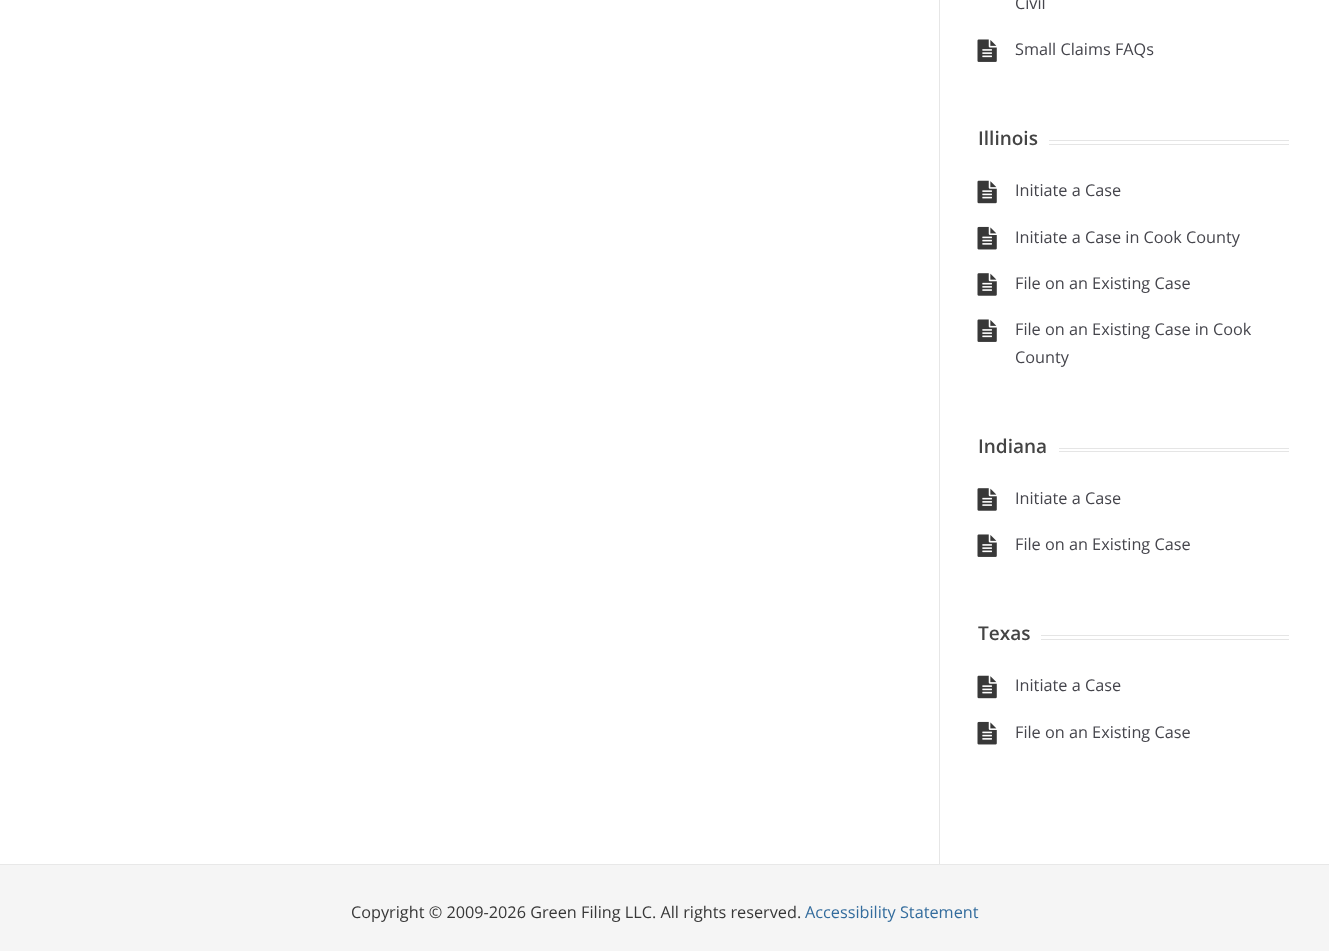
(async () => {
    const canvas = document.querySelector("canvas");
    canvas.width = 1329;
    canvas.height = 951;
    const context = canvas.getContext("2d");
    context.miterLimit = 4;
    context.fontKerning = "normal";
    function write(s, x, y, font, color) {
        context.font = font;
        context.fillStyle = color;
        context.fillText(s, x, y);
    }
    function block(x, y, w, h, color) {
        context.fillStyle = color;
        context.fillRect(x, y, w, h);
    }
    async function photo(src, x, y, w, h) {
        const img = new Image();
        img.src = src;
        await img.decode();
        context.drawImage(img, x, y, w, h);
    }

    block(0, 0, 1329, 951, "rgb(255, 255, 255)");
    block(939, 0, 1, 864, "rgb(230, 230, 230)");
    write("Civil", 1015, 9, "16.25px Open Sans", "rgb(69, 69, 76)");
    await photo("media/1.png", 977, 39, 20, 23);
    write("Small Claims FAQs", 1015, 55, "16.25px Open Sans", "rgb(69, 69, 76)");
    block(1049, 140, 240, 1, "rgb(229, 229, 229)");
    block(1049, 144, 240, 1, "rgb(229, 229, 229)");
    write("Illinois", 978, 145, "600 19px Open Sans", "rgb(68, 68, 68)");
    await photo("media/2.png", 977, 180, 20, 24);
    write("Initiate a Case", 1015, 196, "16.25px Open Sans", "rgb(69, 69, 76)");
    await photo("media/3.png", 977, 226, 20, 24);
    write("Initiate a Case in Cook County", 1015, 243, "16.25px Open Sans", "rgb(69, 69, 76)");
    await photo("media/4.png", 977, 273, 20, 23);
    write("File on an Existing Case", 1015, 289, "16.25px Open Sans", "rgb(69, 69, 76)");
    await photo("media/1.png", 977, 319, 20, 23);
    write("File on an Existing Case in Cook", 1015, 335, "16.25px Open Sans", "rgb(69, 69, 76)");
    write("County", 1015, 363, "16.25px Open Sans", "rgb(69, 69, 76)");
    block(1059, 448, 230, 1, "rgb(229, 229, 229)");
    block(1059, 451, 230, 1, "rgb(229, 229, 229)");
    write("Indiana", 978, 453, "600 19px Open Sans", "rgb(68, 68, 68)");
    await photo("media/4.png", 977, 488, 20, 23);
    write("Initiate a Case", 1015, 504, "16.25px Open Sans", "rgb(69, 69, 76)");
    await photo("media/1.png", 977, 534, 20, 23);
    write("File on an Existing Case", 1015, 550, "16.25px Open Sans", "rgb(69, 69, 76)");
    block(1041, 635, 248, 1, "rgb(229, 229, 229)");
    block(1041, 639, 248, 1, "rgb(229, 229, 229)");
    write("Texas", 978, 640, "600 19px Open Sans", "rgb(68, 68, 68)");
    await photo("media/2.png", 977, 675, 20, 24);
    write("Initiate a Case", 1015, 691, "16.25px Open Sans", "rgb(69, 69, 76)");
    await photo("media/3.png", 977, 721, 20, 24);
    write("File on an Existing Case", 1015, 738, "16.25px Open Sans", "rgb(69, 69, 76)");
    block(0, 865, 1329, 86, "rgb(245, 245, 245)");
    block(0, 864, 1329, 1, "rgb(232, 232, 232)");
    write("Copyright © 2009-2026 Green Filing LLC. All rights reserved.", 351, 918, "16.25px Open Sans", "rgb(56, 56, 56)");
    write("Accessibility Statement", 805, 918, "16.25px Open Sans", "rgb(51, 108, 157)");
})();
